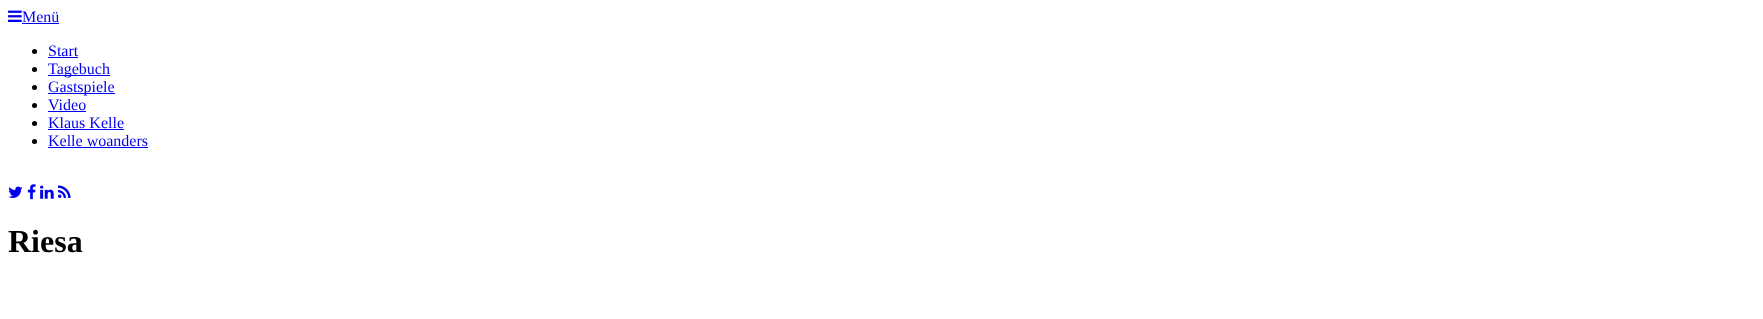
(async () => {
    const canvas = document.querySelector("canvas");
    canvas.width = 1763;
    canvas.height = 319;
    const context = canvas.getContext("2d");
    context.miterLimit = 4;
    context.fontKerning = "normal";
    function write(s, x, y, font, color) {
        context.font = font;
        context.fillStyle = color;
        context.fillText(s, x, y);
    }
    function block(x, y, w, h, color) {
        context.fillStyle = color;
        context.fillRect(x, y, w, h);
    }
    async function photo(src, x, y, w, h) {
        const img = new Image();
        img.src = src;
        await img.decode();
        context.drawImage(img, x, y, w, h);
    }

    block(0, 0, 1763, 319, "rgb(255, 255, 255)");
    await photo("media/1.png", 8, 10, 14, 12);
    write("Menü", 22, 22, "16px Liberation Serif", "rgb(0, 0, 238)");
    block(22, 23, 37, 1, "rgb(0, 0, 238)");
    context.fillStyle = "rgb(0, 0, 0)";
    context.beginPath();
    context.arc(34.5, 51.5, 2.5, 0, Math.PI * 2);
    context.fill();
    write("Start", 48, 56, "16px Liberation Serif", "rgb(0, 0, 238)");
    block(48, 57, 30, 1, "rgb(0, 0, 238)");
    context.fillStyle = "rgb(0, 0, 0)";
    context.beginPath();
    context.arc(34.5, 69.5, 2.5, 0, Math.PI * 2);
    context.fill();
    block(48, 75, 62, 1, "rgb(0, 0, 238)");
    write("Tagebuch", 48, 74, "16px Liberation Serif", "rgb(0, 0, 238)");
    context.fillStyle = "rgb(0, 0, 0)";
    context.beginPath();
    context.arc(34.5, 87.5, 2.5, 0, Math.PI * 2);
    context.fill();
    block(48, 93, 67, 1, "rgb(0, 0, 238)");
    write("Gastspiele", 48, 92, "16px Liberation Serif", "rgb(0, 0, 238)");
    context.fillStyle = "rgb(0, 0, 0)";
    context.beginPath();
    context.arc(34.5, 105.5, 2.5, 0, Math.PI * 2);
    context.fill();
    write("Video", 48, 110, "16px Liberation Serif", "rgb(0, 0, 238)");
    block(48, 111, 38, 1, "rgb(0, 0, 238)");
    context.fillStyle = "rgb(0, 0, 0)";
    context.beginPath();
    context.arc(34.5, 123.5, 2.5, 0, Math.PI * 2);
    context.fill();
    write("Klaus Kelle", 48, 128, "16px Liberation Serif", "rgb(0, 0, 238)");
    block(48, 129, 76, 1, "rgb(0, 0, 238)");
    context.fillStyle = "rgb(0, 0, 0)";
    context.beginPath();
    context.arc(34.5, 141.5, 2.5, 0, Math.PI * 2);
    context.fill();
    write("Kelle woanders", 48, 146, "16px Liberation Serif", "rgb(0, 0, 238)");
    block(48, 147, 100, 1, "rgb(0, 0, 238)");
    await photo("media/2.png", 8, 186, 15, 12);
    await photo("media/3.png", 27, 184, 9, 16);
    await photo("media/4.png", 40, 185, 14, 14);
    await photo("media/5.png", 58, 185, 13, 13);
    write("Riesa", 8, 252, "bold 32px Liberation Serif", "rgb(0, 0, 0)");
})();
